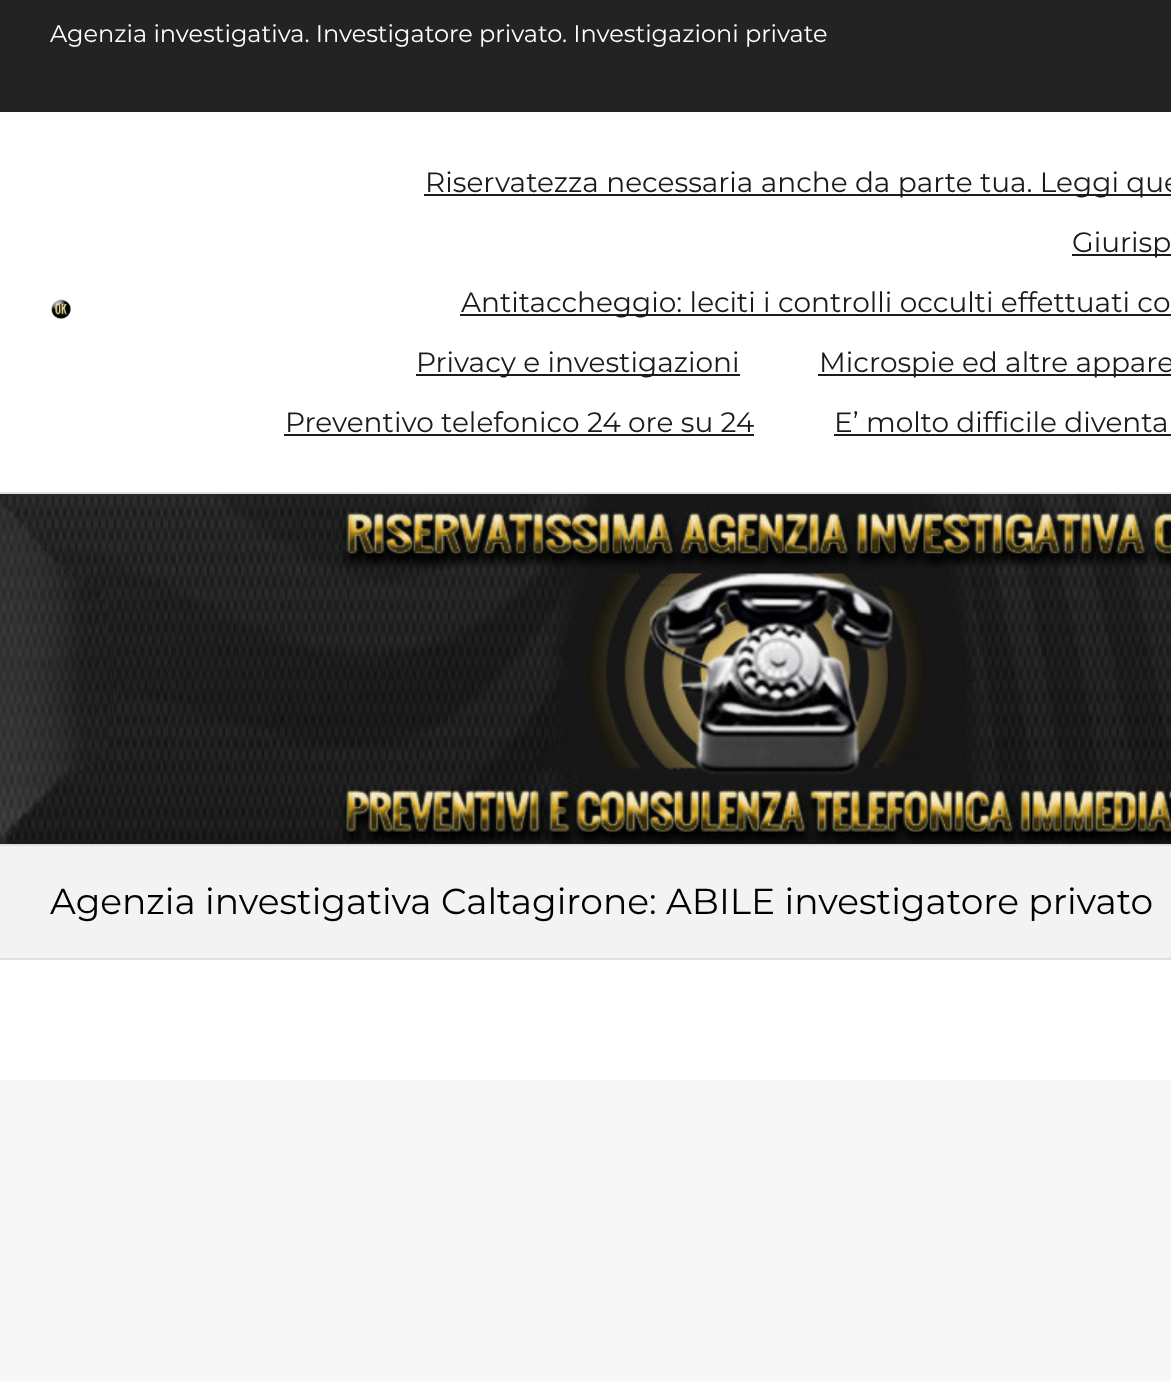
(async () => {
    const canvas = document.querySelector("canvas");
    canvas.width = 1171;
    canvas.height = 1381;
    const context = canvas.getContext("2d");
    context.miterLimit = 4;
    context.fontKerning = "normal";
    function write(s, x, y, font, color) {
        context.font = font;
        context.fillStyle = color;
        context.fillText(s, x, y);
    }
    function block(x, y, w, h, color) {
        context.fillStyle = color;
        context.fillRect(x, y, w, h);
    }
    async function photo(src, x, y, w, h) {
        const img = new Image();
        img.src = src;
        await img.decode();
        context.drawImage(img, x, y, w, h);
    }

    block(0, 0, 1171, 1381, "rgb(247, 247, 247)");
    block(0, 0, 1171, 112, "rgb(35, 35, 35)");
    write("Agenzia investigativa. Investigatore privato. Investigazioni private", 50, 42, "24px Montserrat", "rgb(255, 255, 255)");
    block(0, 112, 1171, 380, "rgb(255, 255, 255)");
    block(0, 492, 1171, 2, "rgb(224, 224, 224)");
    await photo("media/1.png", 51, 299, 20, 20);
    block(424, 194, 747, 2, "rgb(27, 27, 27)");
    write("Riservatezza necessaria anche da parte tua. Leggi que", 425, 192, "28px Montserrat", "rgb(27, 27, 27)");
    block(1072, 254, 99, 2, "rgb(27, 27, 27)");
    write("Giurisp", 1072, 252, "28px Montserrat", "rgb(27, 27, 27)");
    block(460, 314, 711, 2, "rgb(27, 27, 27)");
    write("Antitaccheggio: leciti i controlli occulti effettuati co", 461, 312, "28px Montserrat", "rgb(27, 27, 27)");
    block(416, 374, 324, 2, "rgb(27, 27, 27)");
    write("Privacy e investigazioni", 416, 372, "28px Montserrat", "rgb(27, 27, 27)");
    block(818, 374, 353, 2, "rgb(27, 27, 27)");
    write("Microspie ed altre appare", 819, 372, "28px Montserrat", "rgb(27, 27, 27)");
    write("Preventivo telefonico 24 ore su 24", 285, 432, "28px Montserrat", "rgb(27, 27, 27)");
    block(284, 434, 470, 2, "rgb(27, 27, 27)");
    write("E’ molto difficile diventa", 834, 432, "28px Montserrat", "rgb(27, 27, 27)");
    block(834, 434, 337, 2, "rgb(27, 27, 27)");
    block(0, 844, 1171, 2, "rgb(224, 224, 224)");
    await photo("media/2.png", 0, 494, 1171, 350);
    block(0, 846, 1171, 112, "rgb(243, 243, 243)");
    block(0, 958, 1171, 2, "rgb(224, 224, 224)");
    write("Agenzia investigativa Caltagirone: ABILE investigatore privato", 50, 914, "36px Montserrat", "rgb(0, 0, 0)");
    block(0, 960, 1171, 120, "rgb(255, 255, 255)");
})();
